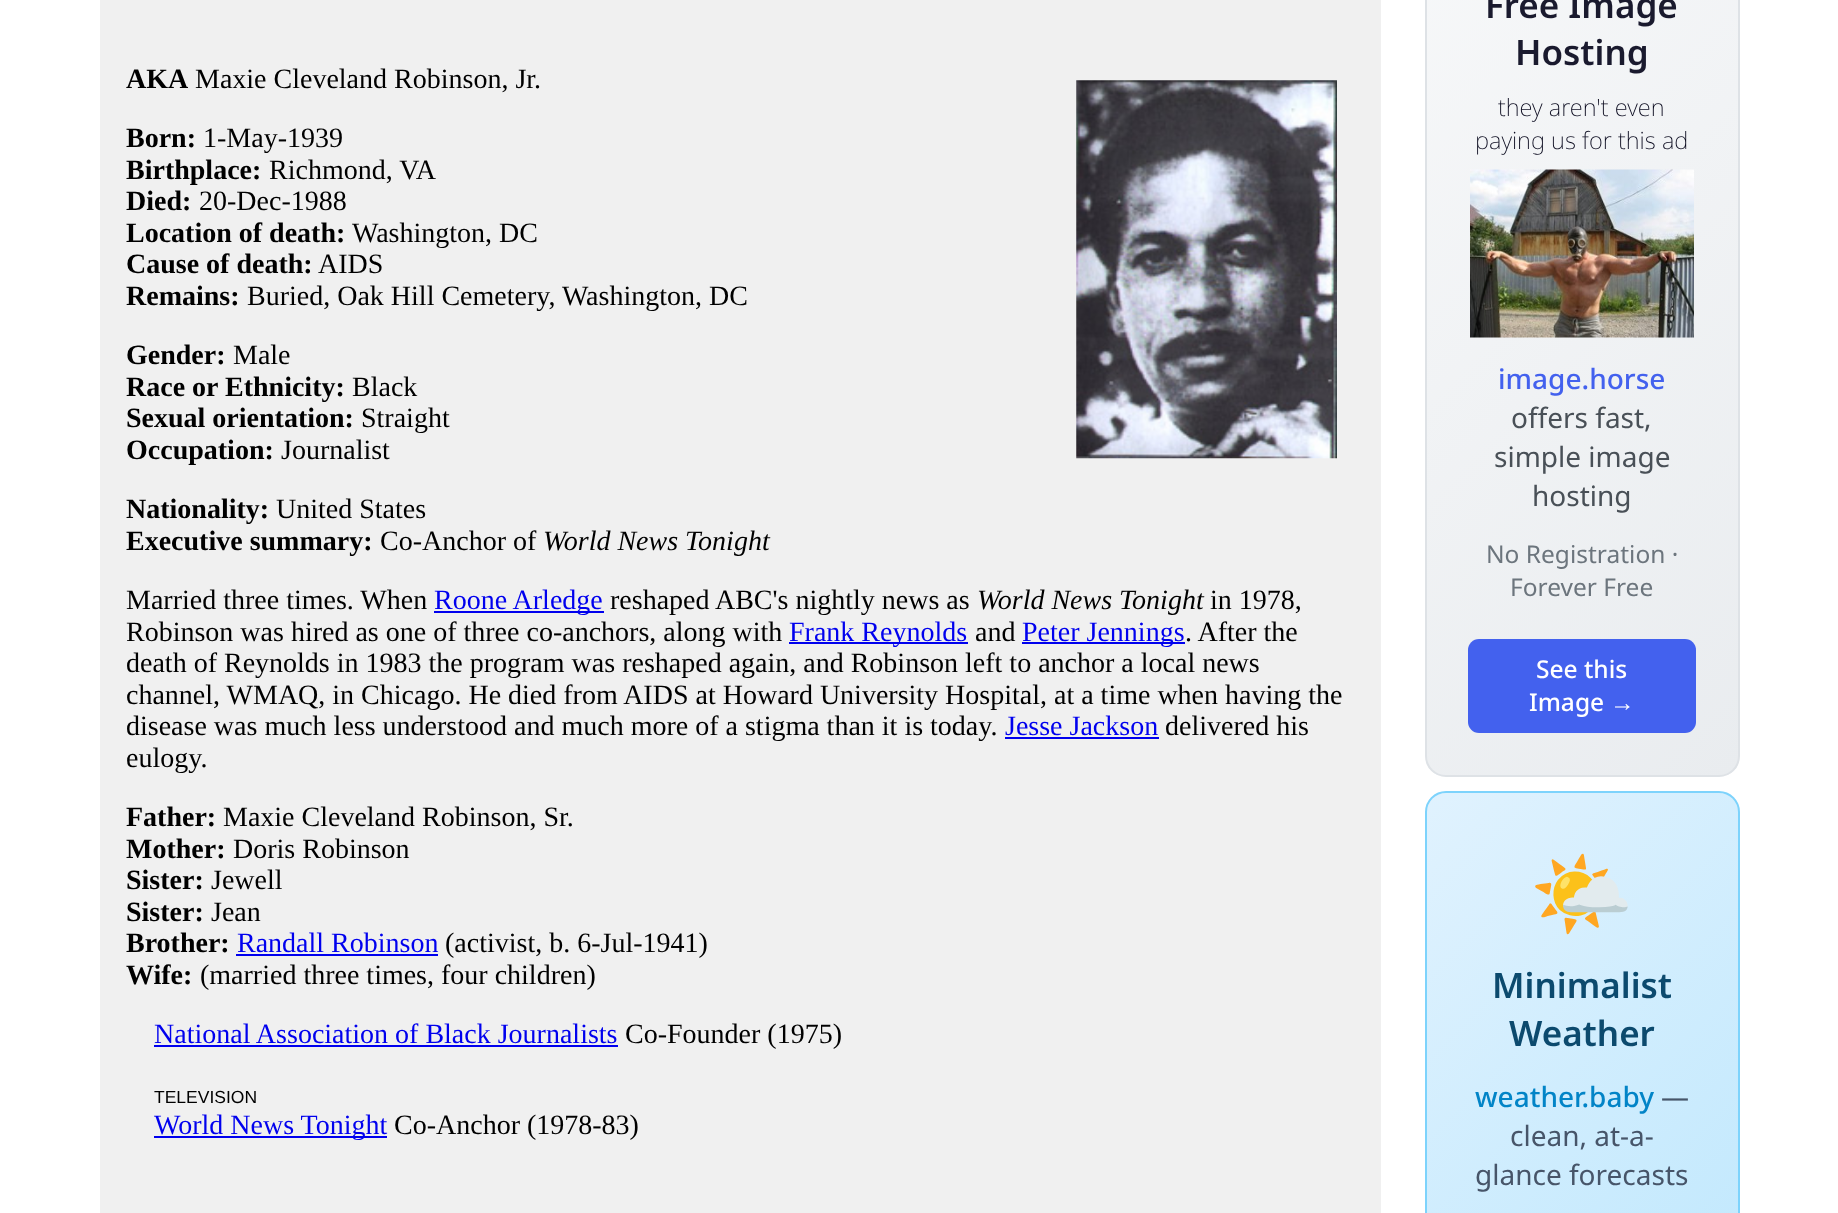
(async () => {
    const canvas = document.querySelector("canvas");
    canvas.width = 1838;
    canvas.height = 1213;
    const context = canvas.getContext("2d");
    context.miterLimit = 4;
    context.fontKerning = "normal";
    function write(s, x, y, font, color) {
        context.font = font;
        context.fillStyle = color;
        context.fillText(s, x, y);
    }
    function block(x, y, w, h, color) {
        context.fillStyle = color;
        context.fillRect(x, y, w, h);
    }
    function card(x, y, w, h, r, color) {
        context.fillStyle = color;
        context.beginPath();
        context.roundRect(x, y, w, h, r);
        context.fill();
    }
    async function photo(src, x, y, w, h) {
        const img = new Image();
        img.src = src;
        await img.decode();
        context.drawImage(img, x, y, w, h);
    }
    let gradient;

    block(0, 0, 1838, 1213, "rgb(255, 255, 255)");
    block(100, 0, 1281, 1213, "rgb(240, 240, 240)");
    write("AKA", 126, 88, "bold 28px Liberation Serif", "rgb(0, 0, 0)");
    write("Maxie Cleveland Robinson, Jr.", 195, 88, "28px Liberation Serif", "rgb(0, 0, 0)");
    await photo("media/1.png", 1076, 80, 261, 379);
    write("Born:", 126, 147, "bold 28px Liberation Serif", "rgb(0, 0, 0)");
    write("1-May-1939", 203, 147, "28px Liberation Serif", "rgb(0, 0, 0)");
    write("Birthplace:", 126, 179, "bold 28px Liberation Serif", "rgb(0, 0, 0)");
    write("Richmond, VA", 269, 179, "28px Liberation Serif", "rgb(0, 0, 0)");
    write("Died:", 126, 210, "bold 28px Liberation Serif", "rgb(0, 0, 0)");
    write("20-Dec-1988", 199, 210, "28px Liberation Serif", "rgb(0, 0, 0)");
    write("Location of death:", 126, 242, "bold 28px Liberation Serif", "rgb(0, 0, 0)");
    write("Washington, DC", 352, 242, "28px Liberation Serif", "rgb(0, 0, 0)");
    write("Cause of death:", 126, 273, "bold 28px Liberation Serif", "rgb(0, 0, 0)");
    write("AIDS", 318, 273, "28px Liberation Serif", "rgb(0, 0, 0)");
    write("Remains:", 126, 305, "bold 28px Liberation Serif", "rgb(0, 0, 0)");
    write("Buried, Oak Hill Cemetery, Washington, DC", 247, 305, "28px Liberation Serif", "rgb(0, 0, 0)");
    write("Gender:", 126, 364, "bold 28px Liberation Serif", "rgb(0, 0, 0)");
    write("Male", 233, 364, "28px Liberation Serif", "rgb(0, 0, 0)");
    write("Race or Ethnicity:", 126, 396, "bold 28px Liberation Serif", "rgb(0, 0, 0)");
    write("Black", 352, 396, "28px Liberation Serif", "rgb(0, 0, 0)");
    write("Sexual orientation:", 126, 427, "bold 28px Liberation Serif", "rgb(0, 0, 0)");
    write("Straight", 361, 427, "28px Liberation Serif", "rgb(0, 0, 0)");
    write("Occupation:", 126, 459, "bold 28px Liberation Serif", "rgb(0, 0, 0)");
    write("Journalist", 281, 459, "28px Liberation Serif", "rgb(0, 0, 0)");
    write("Nationality:", 126, 518, "bold 28px Liberation Serif", "rgb(0, 0, 0)");
    write("United States", 276, 518, "28px Liberation Serif", "rgb(0, 0, 0)");
    write("Executive summary:", 126, 550, "bold 28px Liberation Serif", "rgb(0, 0, 0)");
    write("Co-Anchor of", 380, 550, "28px Liberation Serif", "rgb(0, 0, 0)");
    write("World News Tonight", 543, 550, "italic 28px Liberation Serif", "rgb(0, 0, 0)");
    write("Married three times. When", 126, 609, "28px Liberation Serif", "rgb(0, 0, 0)");
    block(434, 611, 170, 2, "rgb(0, 0, 238)");
    write("Roone Arledge", 434, 609, "28px Liberation Serif", "rgb(0, 0, 238)");
    write("reshaped ABC's nightly news as", 610, 609, "28px Liberation Serif", "rgb(0, 0, 0)");
    write("World News Tonight", 977, 609, "italic 28px Liberation Serif", "rgb(0, 0, 0)");
    write("in 1978,", 1210, 609, "28px Liberation Serif", "rgb(0, 0, 0)");
    write("Robinson was hired as one of three co-anchors, along with", 126, 641, "28px Liberation Serif", "rgb(0, 0, 0)");
    block(789, 642, 179, 2, "rgb(0, 0, 238)");
    write("Frank Reynolds", 789, 641, "28px Liberation Serif", "rgb(0, 0, 238)");
    write("and", 975, 641, "28px Liberation Serif", "rgb(0, 0, 0)");
    block(1022, 642, 163, 2, "rgb(0, 0, 238)");
    write("Peter Jennings", 1022, 641, "28px Liberation Serif", "rgb(0, 0, 238)");
    write(". After the", 1185, 641, "28px Liberation Serif", "rgb(0, 0, 0)");
    write("death of Reynolds in 1983 the program was reshaped again, and Robinson left to anchor a local news", 126, 672, "28px Liberation Serif", "rgb(0, 0, 0)");
    write("channel, WMAQ, in Chicago. He died from AIDS at Howard University Hospital, at a time when having the", 126, 704, "28px Liberation Serif", "rgb(0, 0, 0)");
    write("disease was much less understood and much more of a stigma than it is today.", 126, 735, "28px Liberation Serif", "rgb(0, 0, 0)");
    write("Jesse Jackson", 1005, 735, "28px Liberation Serif", "rgb(0, 0, 238)");
    block(1005, 737, 154, 2, "rgb(0, 0, 238)");
    write("delivered his", 1165, 735, "28px Liberation Serif", "rgb(0, 0, 0)");
    write("eulogy.", 126, 767, "28px Liberation Serif", "rgb(0, 0, 0)");
    write("Father:", 126, 826, "bold 28px Liberation Serif", "rgb(0, 0, 0)");
    write("Maxie Cleveland Robinson, Sr.", 223, 826, "28px Liberation Serif", "rgb(0, 0, 0)");
    write("Mother:", 126, 858, "bold 28px Liberation Serif", "rgb(0, 0, 0)");
    write("Doris Robinson", 233, 858, "28px Liberation Serif", "rgb(0, 0, 0)");
    write("Sister:", 126, 889, "bold 28px Liberation Serif", "rgb(0, 0, 0)");
    write("Jewell", 211, 889, "28px Liberation Serif", "rgb(0, 0, 0)");
    write("Sister:", 126, 921, "bold 28px Liberation Serif", "rgb(0, 0, 0)");
    write("Jean", 211, 921, "28px Liberation Serif", "rgb(0, 0, 0)");
    write("Brother:", 126, 952, "bold 28px Liberation Serif", "rgb(0, 0, 0)");
    write("Randall Robinson", 237, 952, "28px Liberation Serif", "rgb(0, 0, 238)");
    block(236, 954, 202, 2, "rgb(0, 0, 238)");
    write("(activist, b. 6-Jul-1941)", 445, 952, "28px Liberation Serif", "rgb(0, 0, 0)");
    write("Wife:", 126, 984, "bold 28px Liberation Serif", "rgb(0, 0, 0)");
    write("(married three times, four children)", 200, 984, "28px Liberation Serif", "rgb(0, 0, 0)");
    write("National Association of Black Journalists", 154, 1043, "28px Liberation Serif", "rgb(0, 0, 238)");
    block(154, 1045, 464, 2, "rgb(0, 0, 238)");
    write("Co-Founder (1975)", 625, 1043, "28px Liberation Serif", "rgb(0, 0, 0)");
    write("TELEVISION", 154, 1103, "17.5px Liberation Sans", "rgb(0, 0, 0)");
    block(154, 1136, 233, 2, "rgb(0, 0, 238)");
    write("World News Tonight", 154, 1134, "28px Liberation Serif", "rgb(0, 0, 238)");
    write("Co-Anchor (1978-83)", 394, 1134, "28px Liberation Serif", "rgb(0, 0, 0)");
    context.save();
    context.beginPath();
    context.roundRect(1425, -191, 315, 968, 21);
    context.clip();
    gradient = context.createLinearGradient(1263, -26, 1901, 612);
    gradient.addColorStop(0, "rgb(248, 249, 250)");
    gradient.addColorStop(1, "rgb(233, 236, 239)");
    context.fillStyle = gradient;
    context.fillRect(1426, 0, 312, 775);
    context.restore();
    context.beginPath();
    context.roundRect(1426, -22, 313, 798, 20);
    context.strokeStyle = "rgb(222, 226, 230)";
    context.lineWidth = 2;
    context.stroke();
    write("Free Image", 1485, 18, "600 35px Noto Sans", "rgb(26, 26, 46)");
    write("Hosting", 1515, 65, "600 35px Noto Sans", "rgb(26, 26, 46)");
    write("they aren't even", 1498, 116, "200 23.75px Noto Sans", "rgb(10, 10, 30)");
    write("paying us for this ad", 1475, 149, "200 23.75px Noto Sans", "rgb(10, 10, 30)");
    await photo("media/2.png", 1470, 169, 224, 169);
    write("image.horse", 1498, 389, "500 28px Noto Sans", "rgb(67, 97, 238)");
    write("offers fast,", 1511, 428, "28px Noto Sans", "rgb(73, 80, 87)");
    write("simple image", 1494, 467, "28px Noto Sans", "rgb(73, 80, 87)");
    write("hosting", 1532, 506, "28px Noto Sans", "rgb(73, 80, 87)");
    write("No Registration ·", 1486, 563, "24.5px Noto Sans", "rgb(108, 117, 125)");
    write("Forever Free", 1510, 596, "24.5px Noto Sans", "rgb(108, 117, 125)");
    card(1468, 639, 228, 94, 11, "rgb(67, 97, 238)");
    write("See this", 1536, 678, "500 24.5px Noto Sans", "rgb(255, 255, 255)");
    write("Image", 1529, 711, "500 24.5px Noto Sans", "rgb(255, 255, 255)");
    write("→", 1610, 711, "24.5px Liberation Sans", "rgb(255, 255, 255)");
    context.save();
    context.beginPath();
    context.roundRect(1425, 791, 315, 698, 21);
    context.clip();
    gradient = context.createLinearGradient(1330, 889, 1834, 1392);
    gradient.addColorStop(0, "rgb(224, 242, 254)");
    gradient.addColorStop(1, "rgb(186, 230, 253)");
    context.fillStyle = gradient;
    context.fillRect(1426, 793, 312, 420);
    context.restore();
    context.beginPath();
    context.roundRect(1426, 792, 313, 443, 20);
    context.strokeStyle = "rgb(125, 211, 252)";
    context.stroke();
    write("🌤️", 1529, 923, "84px Noto Color Emoji", "rgb(0, 0, 238)");
    write("Minimalist", 1492, 998, "600 35px Noto Sans", "rgb(12, 74, 110)");
    write("Weather", 1509, 1046, "600 35px Noto Sans", "rgb(12, 74, 110)");
    write("weather.baby", 1475, 1107, "500 28px Noto Sans", "rgb(2, 132, 199)");
    write("—", 1661, 1107, "28px Noto Sans", "rgb(71, 85, 105)");
    write("clean, at-a-", 1510, 1146, "28px Noto Sans", "rgb(71, 85, 105)");
    write("glance forecasts", 1475, 1185, "28px Noto Sans", "rgb(71, 85, 105)");
})();
